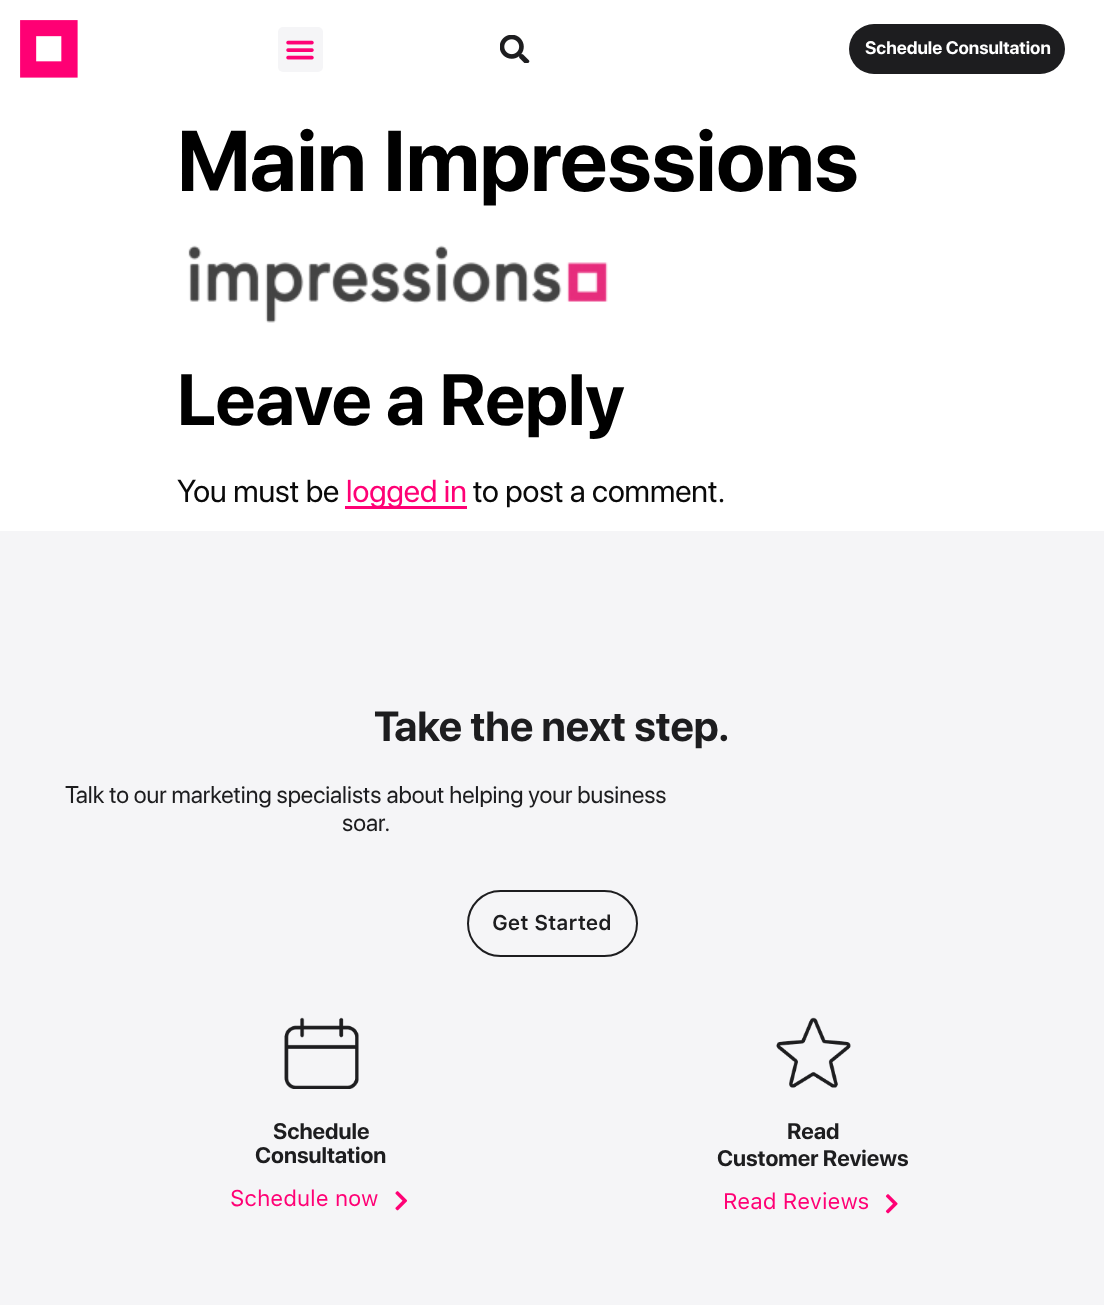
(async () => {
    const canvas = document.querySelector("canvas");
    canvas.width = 1104;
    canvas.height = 1305;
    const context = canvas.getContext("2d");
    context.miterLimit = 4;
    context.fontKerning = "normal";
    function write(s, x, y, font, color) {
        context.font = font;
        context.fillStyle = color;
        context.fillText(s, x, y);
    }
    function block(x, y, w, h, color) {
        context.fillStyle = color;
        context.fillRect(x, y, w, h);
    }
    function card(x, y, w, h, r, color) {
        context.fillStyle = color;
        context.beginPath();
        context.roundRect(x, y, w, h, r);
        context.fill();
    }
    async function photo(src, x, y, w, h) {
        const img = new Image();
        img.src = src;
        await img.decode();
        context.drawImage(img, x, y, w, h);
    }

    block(0, 0, 1104, 1305, "rgb(255, 255, 255)");
    await photo("media/1.png", 20, 20, 58, 58);
    card(278, 27, 45, 45, 5, "rgb(245, 245, 247)");
    await photo("media/2.png", 286, 40, 28, 20);
    await photo("media/3.png", 500, 35, 30, 28);
    card(849, 24, 216, 50, 25, "rgb(29, 29, 31)");
    write("Schedule Consultation", 865, 54, "bold 18px SF Pro Display", "rgb(255, 255, 255)");
    write("Main Impressions", 177, 191, "bold 85.5px SF Pro Display", "rgb(0, 0, 0)");
    await photo("media/4.png", 188, 245, 420, 78);
    write("Leave a Reply", 177, 425, "bold 72px SF Pro Display", "rgb(0, 0, 0)");
    write("You must be", 177, 502, "31.5px SF Pro Display", "rgb(10, 10, 10)");
    block(345, 506, 122, 3, "rgb(255, 1, 117)");
    write("logged in", 346, 502, "31.5px SF Pro Display", "rgb(255, 1, 117)");
    write("to post a comment.", 473, 502, "31.5px SF Pro Display", "rgb(10, 10, 10)");
    block(0, 531, 1104, 774, "rgb(245, 245, 247)");
    write("Take the next step.", 374, 741, "bold 42px SF Pro Display", "rgb(29, 29, 31)");
    write("Talk to our marketing specialists about helping your business", 65, 803, "24px SF Pro Display", "rgb(29, 29, 31)");
    write("soar.", 342, 831, "24px SF Pro Display", "rgb(29, 29, 31)");
    context.beginPath();
    context.roundRect(468, 891, 169, 65, 32.5);
    context.strokeStyle = "rgb(29, 29, 31)";
    context.lineWidth = 2;
    context.stroke();
    write("Get Started", 492, 930, "600 21px SF Pro Text", "rgb(29, 29, 31)");
    await photo("media/5.png", 284, 1017, 75, 72);
    write("Schedule", 273, 1139, "bold 22.5px SF Pro Display", "rgb(29, 29, 31)");
    write("Consultation", 255, 1163, "bold 22.5px SF Pro Display", "rgb(29, 29, 31)");
    write("Schedule now", 230, 1206, "22.5px SF Pro Text", "rgb(255, 1, 117)");
    await photo("media/6.png", 395, 1191, 13, 20);
    await photo("media/7.png", 776, 1017, 75, 71);
    write("Read", 787, 1139, "bold 22.5px SF Pro Display", "rgb(29, 29, 31)");
    write("Customer Reviews", 717, 1166, "bold 22.5px SF Pro Display", "rgb(29, 29, 31)");
    write("Read Reviews", 723, 1209, "22.5px SF Pro Text", "rgb(255, 1, 117)");
    await photo("media/8.png", 885, 1194, 13, 20);
})();
